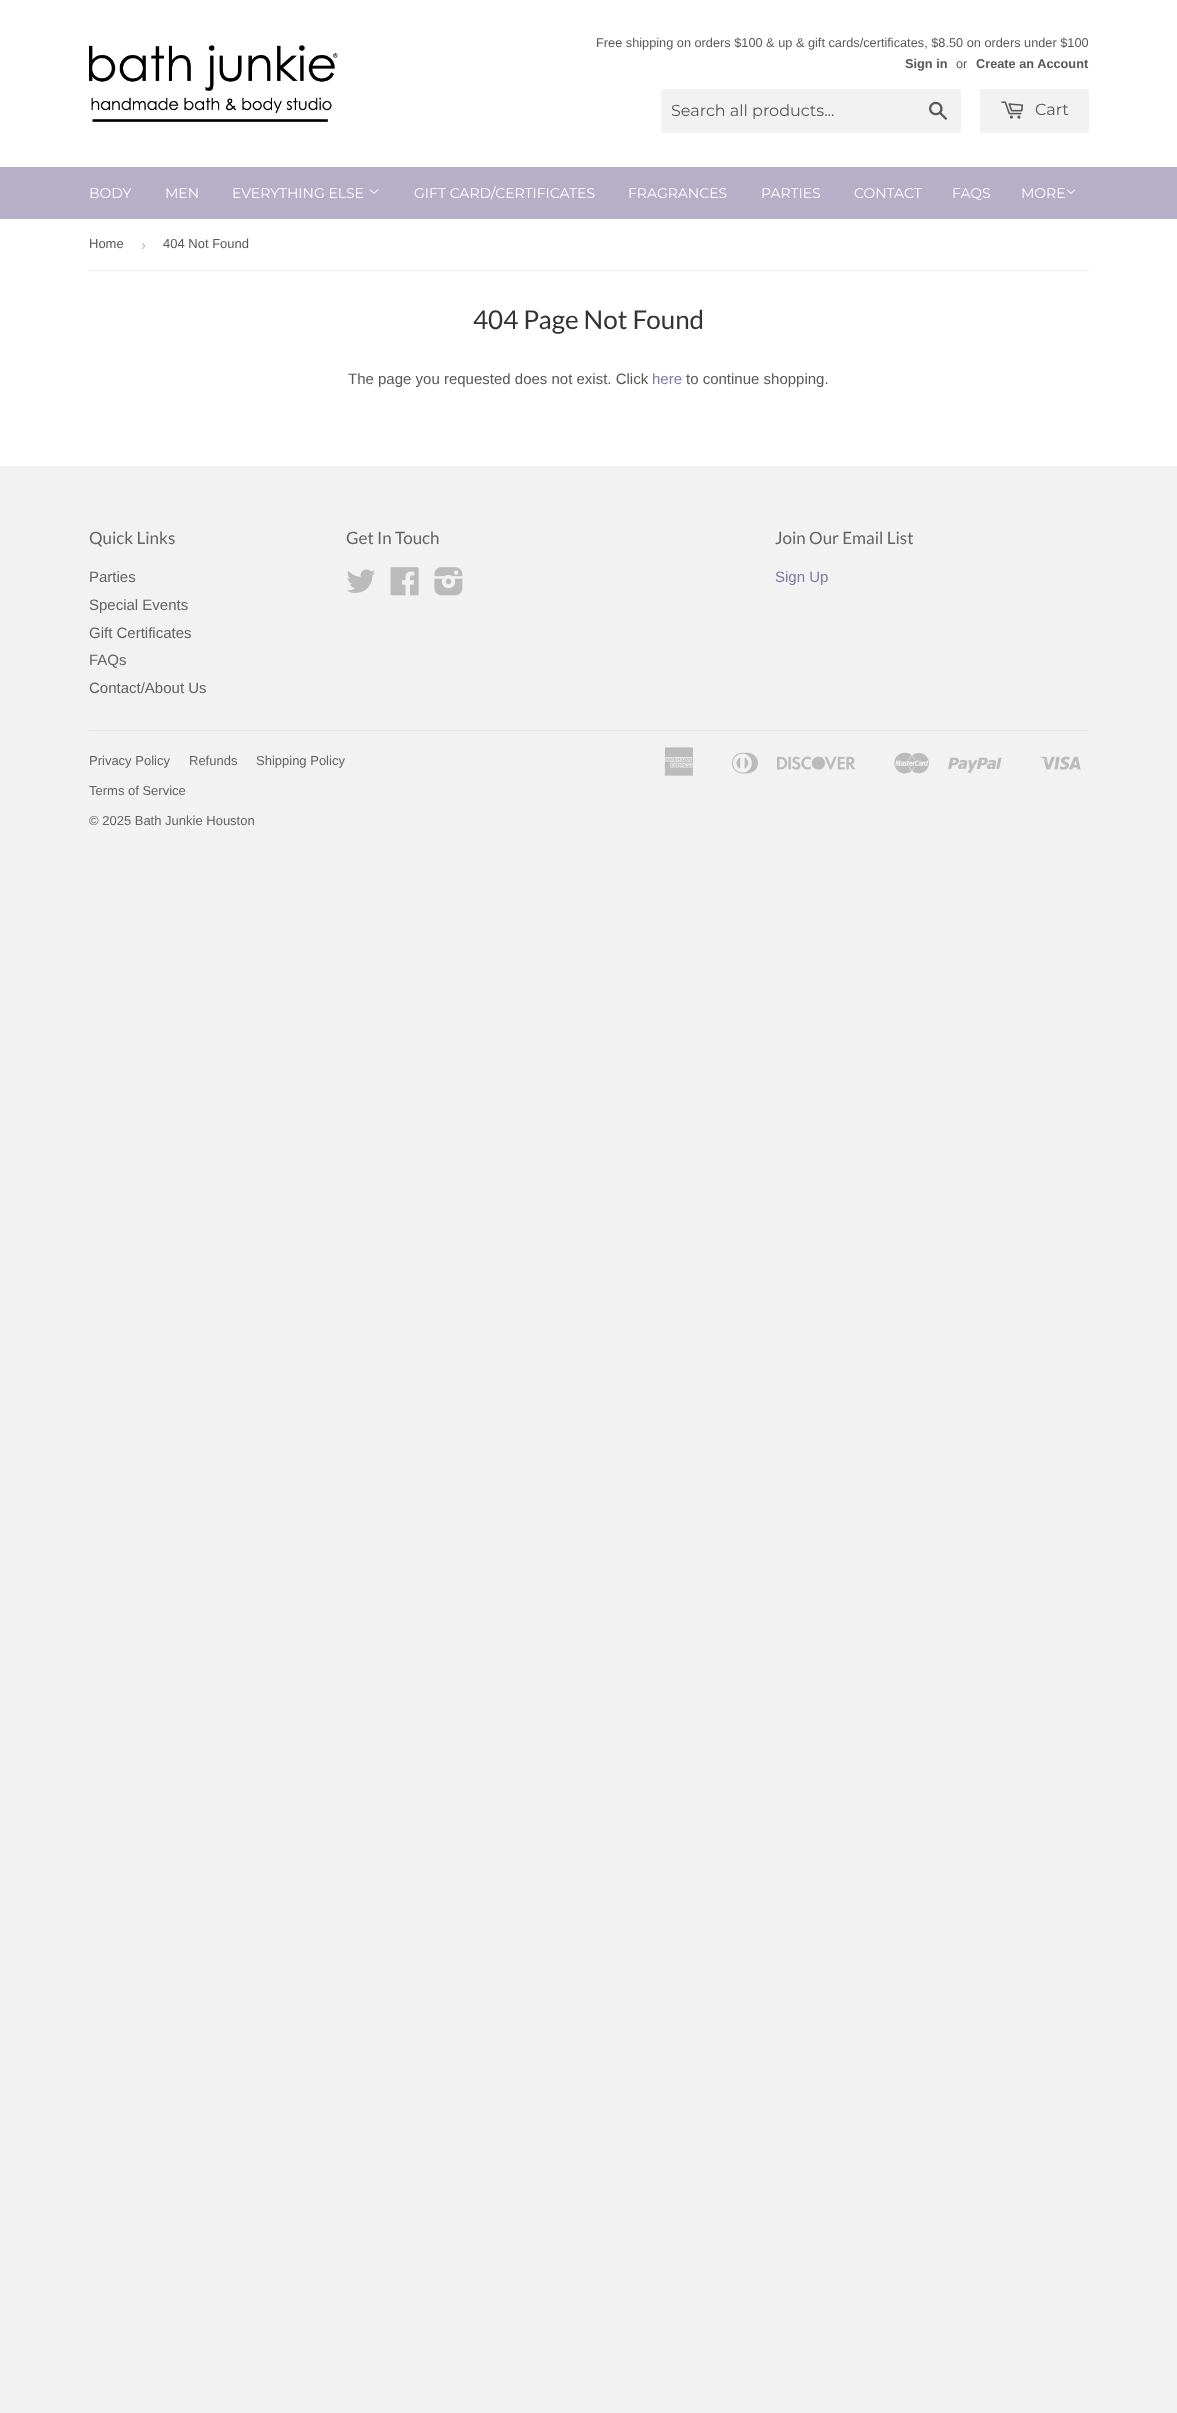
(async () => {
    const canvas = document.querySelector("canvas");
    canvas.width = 1177;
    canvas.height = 2413;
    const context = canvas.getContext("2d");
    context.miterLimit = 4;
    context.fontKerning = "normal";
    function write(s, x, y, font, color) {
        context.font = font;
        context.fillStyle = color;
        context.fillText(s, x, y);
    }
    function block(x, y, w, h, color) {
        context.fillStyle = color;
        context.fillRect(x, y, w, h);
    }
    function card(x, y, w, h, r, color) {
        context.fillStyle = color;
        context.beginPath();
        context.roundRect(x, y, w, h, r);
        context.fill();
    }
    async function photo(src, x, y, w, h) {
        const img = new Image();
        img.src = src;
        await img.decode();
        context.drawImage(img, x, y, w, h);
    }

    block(0, 0, 1177, 2413, "rgb(242, 242, 242)");
    block(0, 0, 1177, 466, "rgb(255, 255, 255)");
    await photo("media/1.png", 89, 45, 249, 77);
    write("Free shipping on orders $100 & up & gift cards/certificates, $8.50 on orders under $100", 596, 47, "12.75px Liberation Sans", "rgb(88, 88, 88)");
    write("Sign in", 905, 68, "bold 12.75px Liberation Sans", "rgb(88, 88, 88)");
    write("or", 956, 68, "12.75px Liberation Sans", "rgb(88, 88, 88)");
    write("Create an Account", 976, 68, "bold 12.75px Liberation Sans", "rgb(88, 88, 88)");
    card(661, 89, 300, 44, 2, "rgb(242, 242, 242)");
    write("Search all products...", 671, 116, "100 16px Montserrat", "rgb(88, 88, 88)");
    await photo("media/2.png", 929, 101, 18, 19);
    card(980, 89, 109, 44, 2, "rgb(242, 242, 242)");
    await photo("media/3.png", 1001, 101, 23, 18);
    write("Cart", 1035, 115, "100 16px Montserrat", "rgb(88, 88, 88)");
    block(0, 167, 1177, 52, "rgb(182, 175, 199)");
    write("BODY", 89, 198, "100 14px Montserrat", "rgb(255, 255, 255)");
    write("MEN", 165, 198, "100 14px Montserrat", "rgb(255, 255, 255)");
    write("EVERYTHING ELSE", 232, 198, "100 14px Montserrat", "rgb(255, 255, 255)");
    await photo("media/4.png", 369, 189, 10, 5);
    write("GIFT CARD/CERTIFICATES", 414, 198, "100 14px Montserrat", "rgb(255, 255, 255)");
    write("FRAGRANCES", 628, 198, "100 14px Montserrat", "rgb(255, 255, 255)");
    write("PARTIES", 761, 198, "100 14px Montserrat", "rgb(255, 255, 255)");
    write("CONTACT", 854, 198, "100 14px Montserrat", "rgb(255, 255, 255)");
    write("FAQS", 952, 198, "100 14px Montserrat", "rgb(255, 255, 255)");
    write("MORE", 1021, 198, "100 14px Montserrat", "rgb(255, 255, 255)");
    await photo("media/4.png", 1066, 189, 10, 5);
    block(89, 270, 1000, 1, "rgb(236, 236, 236)");
    write("Home", 89, 248, "13px Liberation Sans", "rgb(88, 88, 88)");
    write("›", 141, 250, "15px Liberation Sans", "rgb(187, 187, 187)");
    write("404 Not Found", 163, 248, "13px Liberation Sans", "rgb(88, 88, 88)");
    write("404 Page Not Found", 473, 329, "26px Lato", "rgb(51, 51, 51)");
    write("The page you requested does not exist. Click", 348, 384, "15px Liberation Sans", "rgb(88, 88, 88)");
    write("here", 652, 384, "15px Liberation Sans", "rgb(132, 120, 163)");
    write("to continue shopping.", 686, 384, "15px Liberation Sans", "rgb(88, 88, 88)");
    write("Quick Links", 89, 544, "17px Lato", "rgb(99, 99, 99)");
    write("Parties", 89, 582, "15px Liberation Sans", "rgb(99, 99, 99)");
    write("Special Events", 89, 610, "15px Liberation Sans", "rgb(99, 99, 99)");
    write("Gift Certificates", 89, 638, "15px Liberation Sans", "rgb(99, 99, 99)");
    write("FAQs", 89, 665, "15px Liberation Sans", "rgb(99, 99, 99)");
    write("Contact/About Us", 89, 693, "15px Liberation Sans", "rgb(99, 99, 99)");
    write("Get In Touch", 346, 544, "17px Lato", "rgb(99, 99, 99)");
    await photo("media/5.png", 347, 569, 28, 24);
    await photo("media/6.png", 390, 567, 29, 29);
    await photo("media/7.png", 434, 567, 29, 29);
    write("Join Our Email List", 775, 544, "17px Lato", "rgb(99, 99, 99)");
    write("Sign Up", 775, 582, "15px Liberation Sans", "rgb(132, 120, 163)");
    block(89, 730, 1000, 1, "rgb(229, 229, 229)");
    write("Privacy Policy", 89, 765, "13px Liberation Sans", "rgb(99, 99, 99)");
    write("Refunds", 189, 765, "13px Liberation Sans", "rgb(99, 99, 99)");
    write("Shipping Policy", 256, 765, "13px Liberation Sans", "rgb(99, 99, 99)");
    write("Terms of Service", 89, 795, "13px Liberation Sans", "rgb(99, 99, 99)");
    write("© 2025 Bath Junkie Houston", 89, 825, "13px Liberation Sans", "rgb(99, 99, 99)");
    await photo("media/8.png", 664, 747, 29, 29);
    await photo("media/9.png", 732, 752, 26, 22);
    await photo("media/10.png", 777, 756, 79, 14);
    await photo("media/11.png", 894, 752, 35, 22);
    await photo("media/12.png", 948, 757, 54, 16);
    await photo("media/13.png", 1040, 756, 41, 14);
})();
